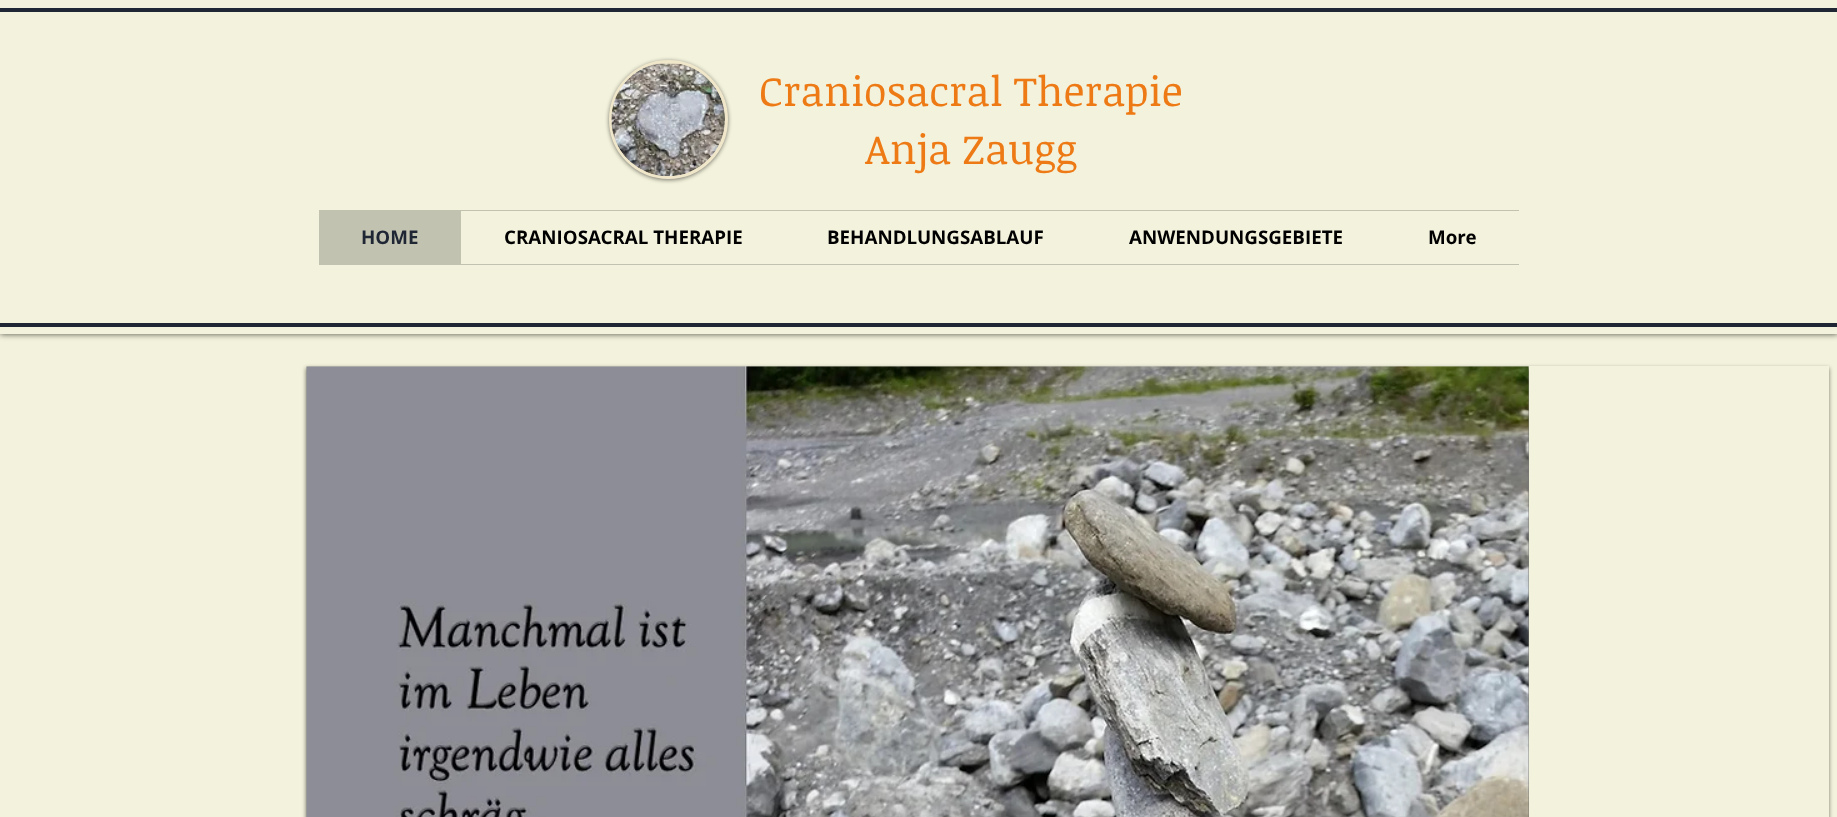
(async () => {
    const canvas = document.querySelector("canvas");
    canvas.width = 1837;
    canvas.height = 817;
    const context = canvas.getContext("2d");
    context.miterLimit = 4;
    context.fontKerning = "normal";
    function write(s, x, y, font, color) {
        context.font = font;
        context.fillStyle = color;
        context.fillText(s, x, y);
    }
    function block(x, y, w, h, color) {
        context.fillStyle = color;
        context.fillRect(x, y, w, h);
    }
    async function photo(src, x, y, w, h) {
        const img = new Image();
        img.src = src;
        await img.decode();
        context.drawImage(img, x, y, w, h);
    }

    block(0, 0, 1837, 817, "rgb(243, 242, 220)");
    context.fillStyle = "rgba(0, 0, 0, 0.7)";
    context.filter = "blur(3px)";
    context.beginPath();
    context.rect(0, 0, 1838, 334);
    context.fill();
    context.filter = "none";
    block(0, 0, 1837, 334, "rgb(243, 242, 220)");
    block(0, 8, 1837, 4, "rgb(31, 38, 52)");
    block(0, 323, 1837, 4, "rgb(31, 38, 52)");
    context.fillStyle = "rgba(0, 0, 0, 0.5)";
    context.filter = "blur(2px)";
    context.beginPath();
    context.roundRect(609, 61, 119, 119, 59.5);
    context.fill();
    context.filter = "none";
    context.fillStyle = "rgb(240, 231, 203)";
    context.beginPath();
    context.arc(668.5, 119.5, 58, 0, Math.PI * 2);
    context.fill();
    context.strokeStyle = "rgb(240, 231, 203)";
    context.lineWidth = 3;
    context.stroke();
    await photo("media/1.png", 611, 63, 114, 113);
    write("Craniosacral Therapie", 759, 106, "41.25px Noticia Text", "rgb(237, 122, 21)");
    write("Anja Zaugg", 865, 164, "41.25px Noticia Text", "rgb(237, 122, 21)");
    block(319, 210, 1200, 1, "rgb(194, 194, 176)");
    block(319, 264, 1200, 1, "rgb(194, 194, 176)");
    block(319, 211, 142, 53, "rgb(194, 194, 176)");
    write("HOME", 361, 244, "bold 18.75px Open Sans", "rgb(31, 38, 52)");
    write("CRANIOSACRAL THERAPIE", 504, 244, "bold 18.75px Open Sans", "rgb(0, 0, 0)");
    write("BEHANDLUNGSABLAUF", 827, 244, "bold 18.75px Open Sans", "rgb(0, 0, 0)");
    write("ANWENDUNGSGEBIETE", 1129, 244, "bold 18.75px Open Sans", "rgb(0, 0, 0)");
    write("More", 1428, 244, "bold 18.75px Open Sans", "rgb(0, 0, 0)");
    context.fillStyle = "rgba(0, 0, 0, 0.5)";
    context.filter = "blur(2px)";
    context.beginPath();
    context.rect(306, 368, 1523, 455);
    context.fill();
    context.filter = "none";
    await photo("media/2.png", 306, 366, 1223, 451);
    block(1529, 366, 300, 451, "rgb(243, 242, 220)");
})();
